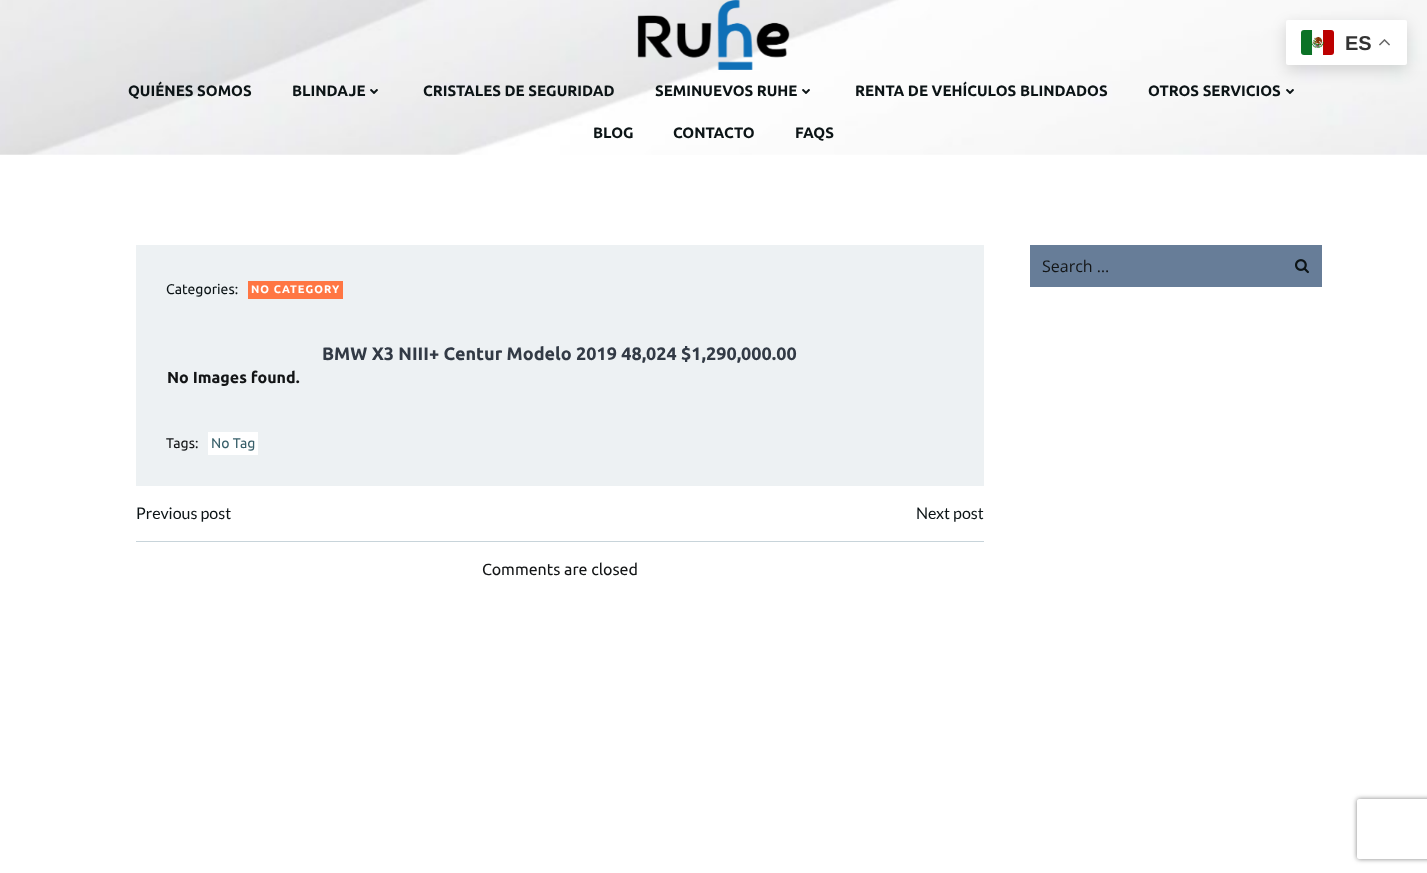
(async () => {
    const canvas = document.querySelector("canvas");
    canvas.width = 1427;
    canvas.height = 873;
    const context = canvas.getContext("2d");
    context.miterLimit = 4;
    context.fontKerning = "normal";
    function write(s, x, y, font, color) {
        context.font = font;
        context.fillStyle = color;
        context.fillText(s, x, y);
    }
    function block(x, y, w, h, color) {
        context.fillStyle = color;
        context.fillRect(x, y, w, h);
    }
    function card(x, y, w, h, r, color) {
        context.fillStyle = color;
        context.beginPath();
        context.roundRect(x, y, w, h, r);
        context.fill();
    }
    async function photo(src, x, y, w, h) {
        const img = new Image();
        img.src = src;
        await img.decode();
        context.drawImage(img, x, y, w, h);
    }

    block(0, 0, 1427, 873, "rgb(255, 255, 255)");
    await photo("media/3.png", 0, 0, 1427, 155);
    await photo("media/7.png", 1286, 89, 8, 5);
    context.fillStyle = "rgba(0, 0, 0, 0.15)";
    context.filter = "blur(7.5px)";
    context.beginPath();
    context.roundRect(1286, 25, 121, 45, 2);
    context.fill();
    context.filter = "none";
    card(1286, 20, 121, 45, 2, "rgb(255, 255, 255)");
    await photo("media/1.png", 1301, 30, 33, 25);
    write("ES", 1345, 50, "bold 20px Liberation Sans", "rgb(51, 51, 51)");
    await photo("media/2.png", 1379, 39, 11, 7);
    await photo("media/4.png", 637, 0, 153, 70);
    write("QUIÉNES SOMOS", 128, 96, "bold 15px Ubuntu", "rgb(12, 20, 22)");
    write("BLINDAJE", 292, 96, "bold 15px Ubuntu", "rgb(12, 20, 22)");
    await photo("media/5.png", 370, 89, 8, 5);
    write("CRISTALES DE SEGURIDAD", 423, 96, "bold 15px Ubuntu", "rgb(12, 20, 22)");
    write("SEMINUEVOS RUHE", 655, 96, "bold 15px Ubuntu", "rgb(12, 20, 22)");
    await photo("media/6.png", 802, 89, 8, 5);
    write("RENTA DE VEHÍCULOS BLINDADOS", 855, 96, "bold 15px Ubuntu", "rgb(12, 20, 22)");
    write("OTROS SERVICIOS", 1148, 96, "bold 15px Ubuntu", "rgb(12, 20, 22)");
    write("BLOG", 593, 138, "bold 15px Ubuntu", "rgb(12, 20, 22)");
    write("CONTACTO", 673, 138, "bold 15px Ubuntu", "rgb(12, 20, 22)");
    write("FAQS", 795, 138, "bold 15px Ubuntu", "rgb(12, 20, 22)");
    block(1030, 245, 292, 42, "rgb(103, 125, 152)");
    write("Search …", 1042, 272, "16px Open Sans", "rgb(19, 21, 22)");
    await photo("media/8.png", 1295, 259, 14, 15);
    block(136, 245, 848, 241, "rgb(237, 241, 243)");
    write("Categories:", 166, 294, "14px Ubuntu", "rgb(12, 20, 22)");
    block(248, 281, 95, 18, "rgb(255, 118, 67)");
    context.letterSpacing = "1px";
    write("NO CATEGORY", 251, 293, "bold 11px Ubuntu", "rgb(255, 255, 255)");
    context.letterSpacing = "0px";
    write("BMW X3 NIII+ Centur Modelo 2019 48,024 $1,290,000.00", 322, 360, "bold 18px Ubuntu", "rgb(50, 58, 69)");
    write("No Images found.", 167, 383, "bold 16px Ubuntu", "rgb(19, 21, 22)");
    write("Tags:", 166, 448, "14px Ubuntu", "rgb(19, 21, 22)");
    block(208, 432, 50, 23, "rgb(255, 255, 255)");
    write("No Tag", 211, 448, "14px Ubuntu", "rgb(58, 97, 107)");
    block(136, 541, 848, 1, "rgb(200, 212, 218)");
    write("Previous post", 136, 519, "16px Lato", "rgb(12, 20, 22)");
    write("Next post", 916, 519, "16px Lato", "rgb(12, 20, 22)");
    write("Comments are closed", 482, 575, "16px Ubuntu", "rgb(19, 21, 22)");
    context.save();
    context.beginPath();
    context.moveTo(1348, 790);
    context.lineTo(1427, 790);
    context.lineTo(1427, 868);
    context.lineTo(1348, 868);
    context.closePath();
    context.moveTo(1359, 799);
    context.lineTo(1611, 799);
    context.bezierCurveTo(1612, 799, 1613, 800, 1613, 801);
    context.lineTo(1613, 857);
    context.bezierCurveTo(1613, 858, 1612, 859, 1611, 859);
    context.lineTo(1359, 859);
    context.bezierCurveTo(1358, 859, 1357, 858, 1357, 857);
    context.lineTo(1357, 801);
    context.bezierCurveTo(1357, 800, 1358, 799, 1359, 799);
    context.closePath();
    context.clip("evenodd");
    context.fillStyle = "rgb(128, 128, 128)";
    context.filter = "blur(2.5px)";
    context.beginPath();
    context.roundRect(1357, 799, 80, 60, 2);
    context.fill();
    context.filter = "none";
    context.restore();
})();
